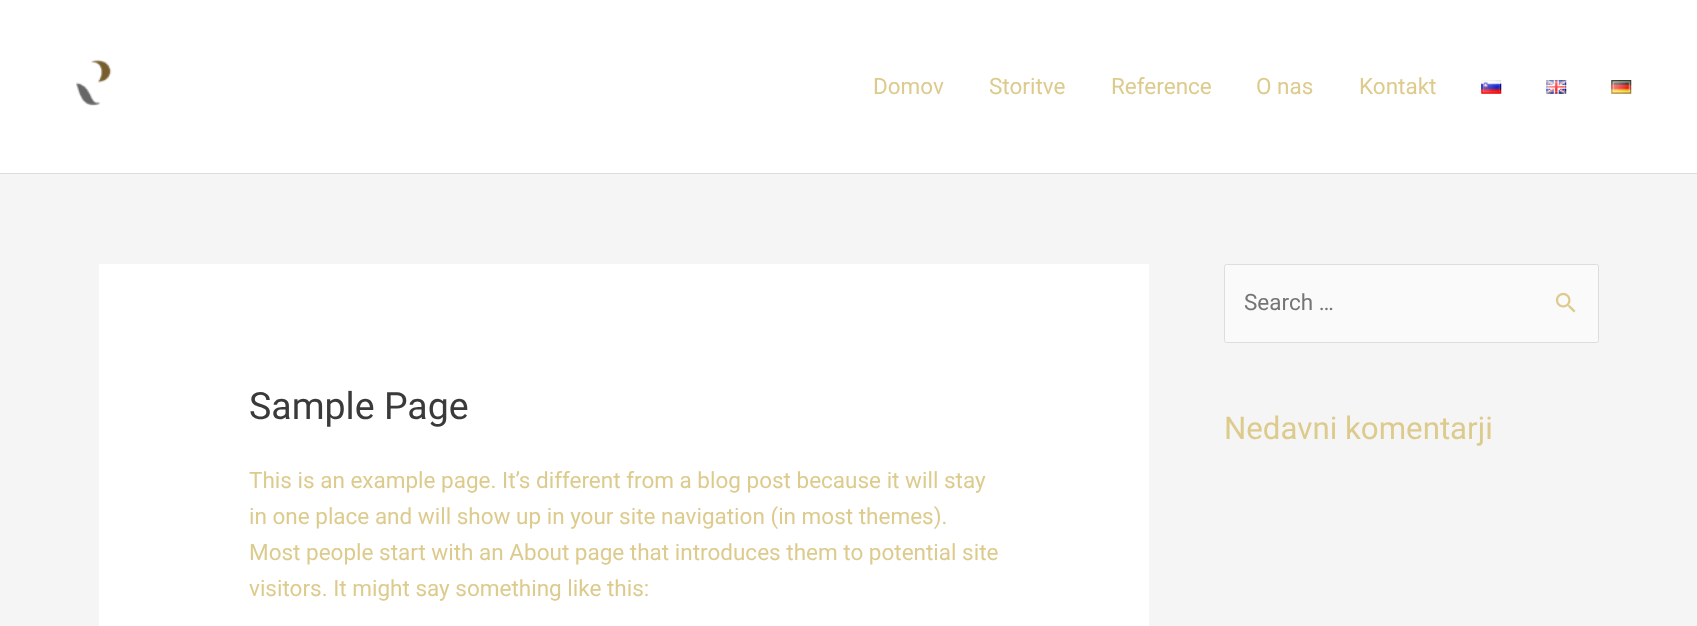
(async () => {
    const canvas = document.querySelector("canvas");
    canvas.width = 1697;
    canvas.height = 626;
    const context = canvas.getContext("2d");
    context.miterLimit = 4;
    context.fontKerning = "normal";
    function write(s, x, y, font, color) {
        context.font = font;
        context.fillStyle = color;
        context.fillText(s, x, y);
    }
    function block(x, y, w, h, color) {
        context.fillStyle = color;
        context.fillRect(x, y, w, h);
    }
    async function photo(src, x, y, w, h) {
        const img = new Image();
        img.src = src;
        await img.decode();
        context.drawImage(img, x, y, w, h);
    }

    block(0, 0, 1697, 626, "rgb(245, 245, 245)");
    block(0, 0, 1697, 173, "rgb(255, 255, 255)");
    block(0, 173, 1697, 1, "rgb(221, 221, 221)");
    await photo("media/1.png", 76, 59, 36, 47);
    write("Domov", 873, 94, "22.5px Roboto", "rgb(221, 203, 141)");
    write("Storitve", 989, 94, "22.5px Roboto", "rgb(221, 203, 141)");
    write("Reference", 1111, 94, "22.5px Roboto", "rgb(221, 203, 141)");
    write("O nas", 1256, 94, "22.5px Roboto", "rgb(221, 203, 141)");
    write("Kontakt", 1359, 94, "22.5px Roboto", "rgb(221, 203, 141)");
    await photo("media/2.png", 1481, 80, 21, 14);
    await photo("media/3.png", 1546, 80, 21, 14);
    await photo("media/4.png", 1611, 80, 21, 14);
    context.fillStyle = "rgb(250, 250, 250)";
    context.beginPath();
    context.roundRect(1224.5, 264.5, 374, 78, 2);
    context.fill();
    context.strokeStyle = "rgb(221, 221, 221)";
    context.stroke();
    write("Search …", 1244, 310, "22.5px Roboto", "rgb(117, 117, 117)");
    await photo("media/5.png", 1555, 292, 21, 21);
    write("Nedavni komentarji", 1224, 439, "31.25px Roboto", "rgb(221, 203, 141)");
    block(99, 264, 1050, 362, "rgb(255, 255, 255)");
    write("Sample Page", 249, 419, "37.5px Roboto", "rgb(58, 58, 58)");
    write("This is an example page. It’s different from a blog post because it will stay", 249, 488, "22.5px Roboto", "rgb(221, 203, 141)");
    write("in one place and will show up in your site navigation (in most themes).", 249, 524, "22.5px Roboto", "rgb(221, 203, 141)");
    write("Most people start with an About page that introduces them to potential site", 249, 560, "22.5px Roboto", "rgb(221, 203, 141)");
    write("visitors. It might say something like this:", 249, 596, "22.5px Roboto", "rgb(221, 203, 141)");
})();
